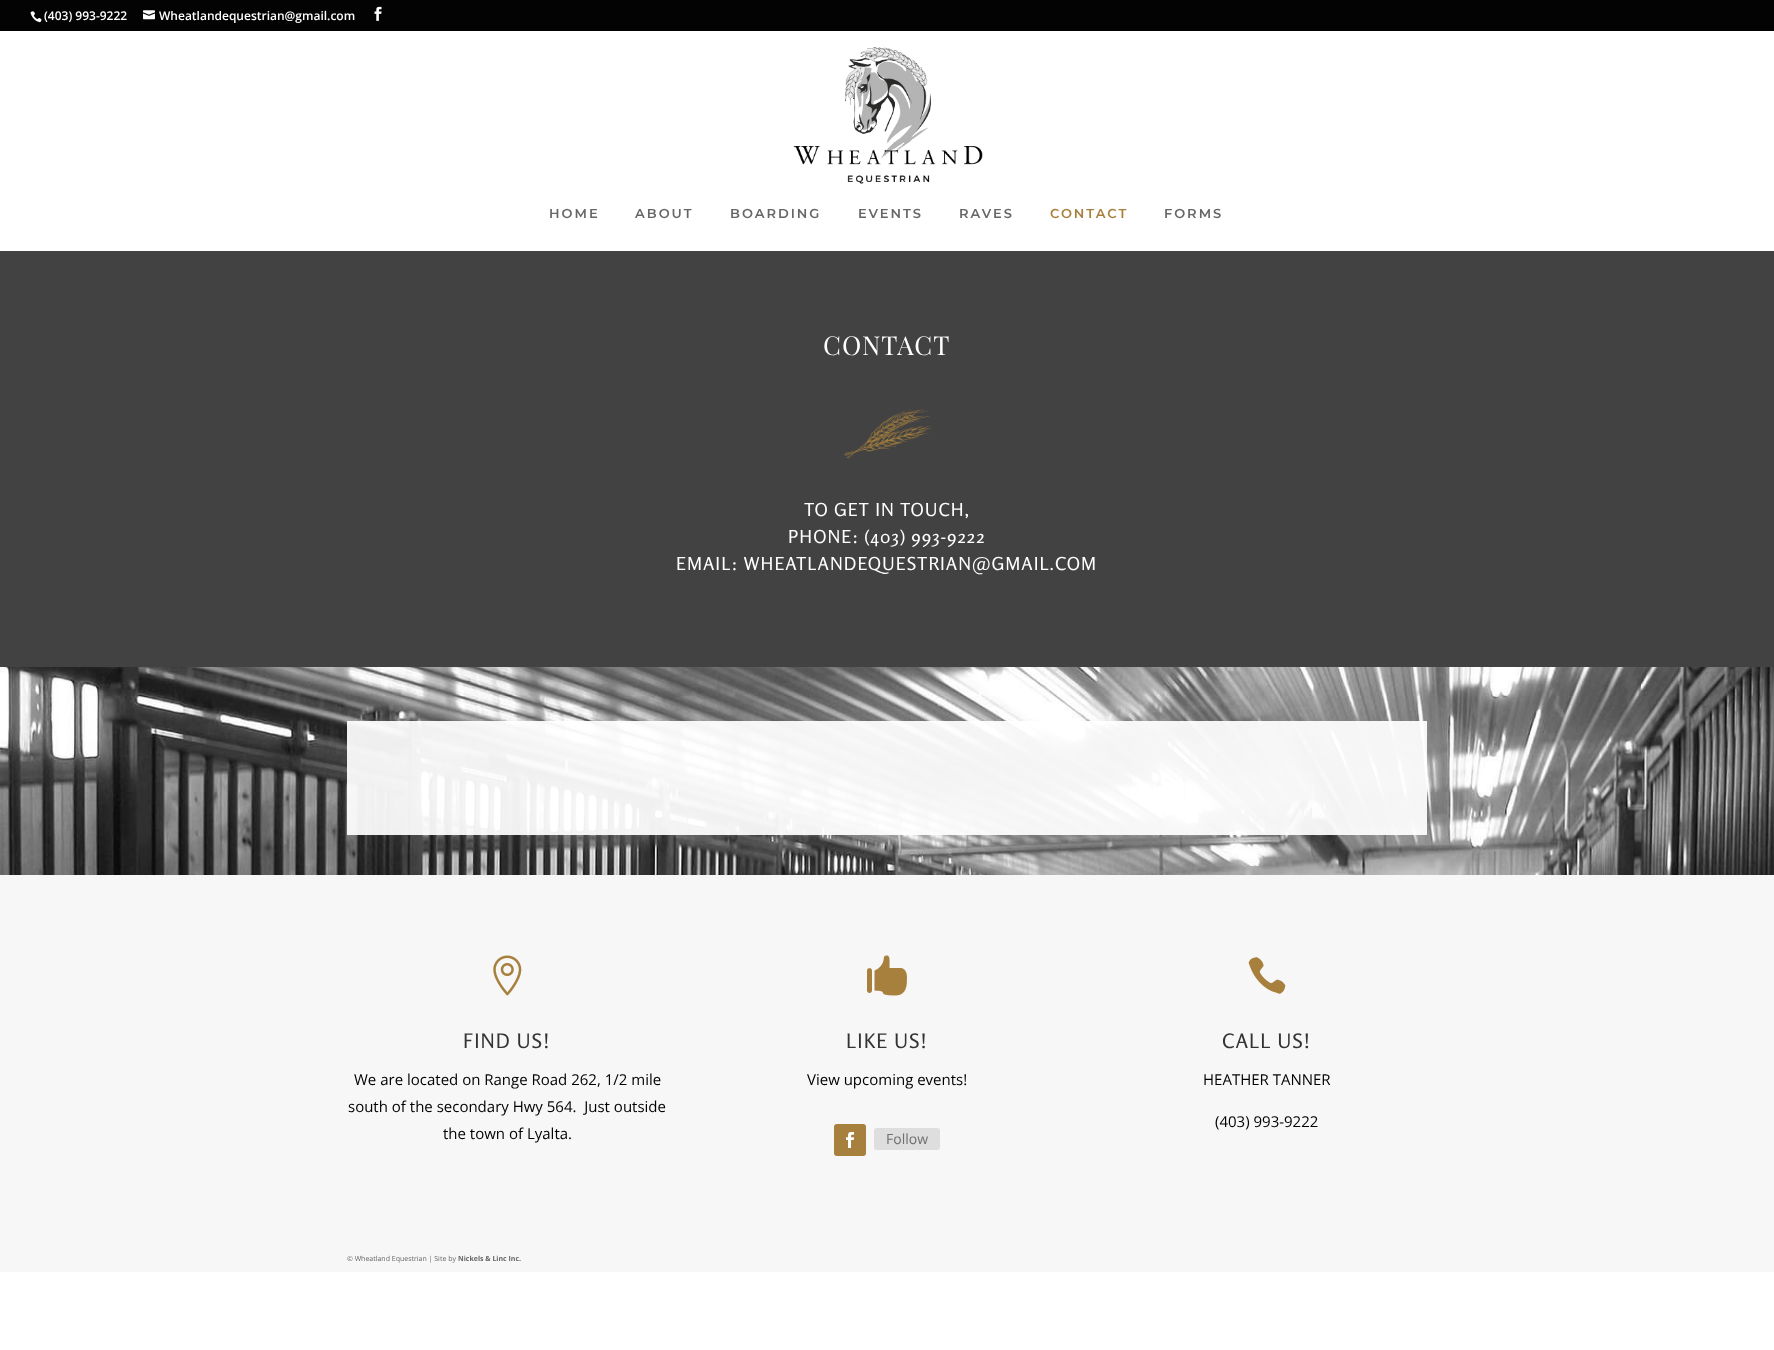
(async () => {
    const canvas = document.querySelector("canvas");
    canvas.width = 1774;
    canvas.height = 1350;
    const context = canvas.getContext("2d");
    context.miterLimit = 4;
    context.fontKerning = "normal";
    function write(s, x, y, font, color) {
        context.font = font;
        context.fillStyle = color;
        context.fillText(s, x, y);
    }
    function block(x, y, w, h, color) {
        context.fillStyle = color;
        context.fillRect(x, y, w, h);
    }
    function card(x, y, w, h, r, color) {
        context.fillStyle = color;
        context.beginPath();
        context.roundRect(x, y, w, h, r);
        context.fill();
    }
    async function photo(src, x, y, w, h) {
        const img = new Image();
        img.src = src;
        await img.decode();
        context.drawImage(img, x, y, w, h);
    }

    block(0, 0, 1774, 1350, "rgb(255, 255, 255)");
    block(0, 0, 1774, 31, "rgb(3, 3, 3)");
    await photo("media/1.png", 30, 11, 12, 12);
    write("(403) 993-9222", 44, 20, "600 12px Open Sans", "rgb(255, 255, 255)");
    await photo("media/2.png", 143, 10, 12, 10);
    write("Wheatlandequestrian@gmail.com", 159, 20, "600 12px Open Sans", "rgb(255, 255, 255)");
    await photo("media/3.png", 374, 6, 8, 15);
    await photo("media/4.png", 793, 47, 190, 137);
    context.letterSpacing = "2px";
    write("HOME", 549, 218, "600 13px Montserrat", "rgb(102, 102, 102)");
    write("ABOUT", 635, 218, "600 13px Montserrat", "rgb(102, 102, 102)");
    write("BOARDING", 730, 218, "600 13px Montserrat", "rgb(102, 102, 102)");
    write("EVENTS", 858, 218, "600 13px Montserrat", "rgb(102, 102, 102)");
    write("RAVES", 959, 218, "600 13px Montserrat", "rgb(102, 102, 102)");
    write("CONTACT", 1050, 218, "600 13px Montserrat", "rgb(167, 128, 61)");
    write("FORMS", 1164, 218, "600 13px Montserrat", "rgb(102, 102, 102)");
    block(0, 251, 1774, 416, "rgb(66, 66, 66)");
    context.letterSpacing = "1px";
    write("CONTACT", 823, 355, "26px Playfair Display SC", "rgb(255, 255, 255)");
    await photo("media/5.png", 844, 409, 88, 50);
    write("TO GET IN TOUCH,", 804, 516, "18px Rosario", "rgb(255, 255, 255)");
    write("PHONE: (403) 993-9222", 788, 543, "18px Rosario", "rgb(255, 255, 255)");
    write("EMAIL: WHEATLANDEQUESTRIAN@GMAIL.COM", 676, 570, "18px Rosario", "rgb(255, 255, 255)");
    await photo("media/6.png", 0, 667, 1774, 208);
    block(347, 721, 1080, 114, "rgba(255, 255, 255, 0.93)");
    block(0, 875, 1774, 397, "rgb(247, 247, 247)");
    await photo("media/7.png", 493, 955, 29, 41);
    write("FIND US!", 463, 1048, "20px Rosario", "rgb(51, 51, 51)");
    context.letterSpacing = "0px";
    write("We are located on Range Road 262, 1/2 mile", 354, 1085, "15px Open Sans", "rgb(0, 0, 0)");
    write("south of the secondary Hwy 564.  Just outside", 348, 1112, "15px Open Sans", "rgb(0, 0, 0)");
    write("the town of Lyalta.", 443, 1139, "15px Open Sans", "rgb(0, 0, 0)");
    await photo("media/8.png", 867, 955, 40, 41);
    context.letterSpacing = "1px";
    write("LIKE US!", 846, 1048, "20px Rosario", "rgb(51, 51, 51)");
    context.letterSpacing = "0px";
    write("View upcoming events!", 807, 1085, "15px Open Sans", "rgb(0, 0, 0)");
    card(834, 1124, 32, 32, 3, "rgb(167, 128, 61)");
    await photo("media/9.png", 846, 1132, 8, 16);
    card(874, 1128, 66, 22, 3, "rgb(222, 222, 222)");
    write("Follow", 886, 1144, "14px Open Sans", "rgb(111, 111, 111)");
    await photo("media/10.png", 1248, 957, 38, 37);
    context.letterSpacing = "1px";
    write("CALL US!", 1222, 1048, "20px Rosario", "rgb(51, 51, 51)");
    context.letterSpacing = "0px";
    write("HEATHER TANNER", 1203, 1085, "15px Open Sans", "rgb(0, 0, 0)");
    write("(403) 993-9222", 1215, 1127, "15px Open Sans", "rgb(0, 0, 0)");
    write("© Wheatland Equestrian | Site by", 347, 1261, "7px Open Sans", "rgb(102, 102, 102)");
    write("Nickels & Linc Inc.", 458, 1261, "bold 7px Open Sans", "rgb(102, 102, 102)");
})();
